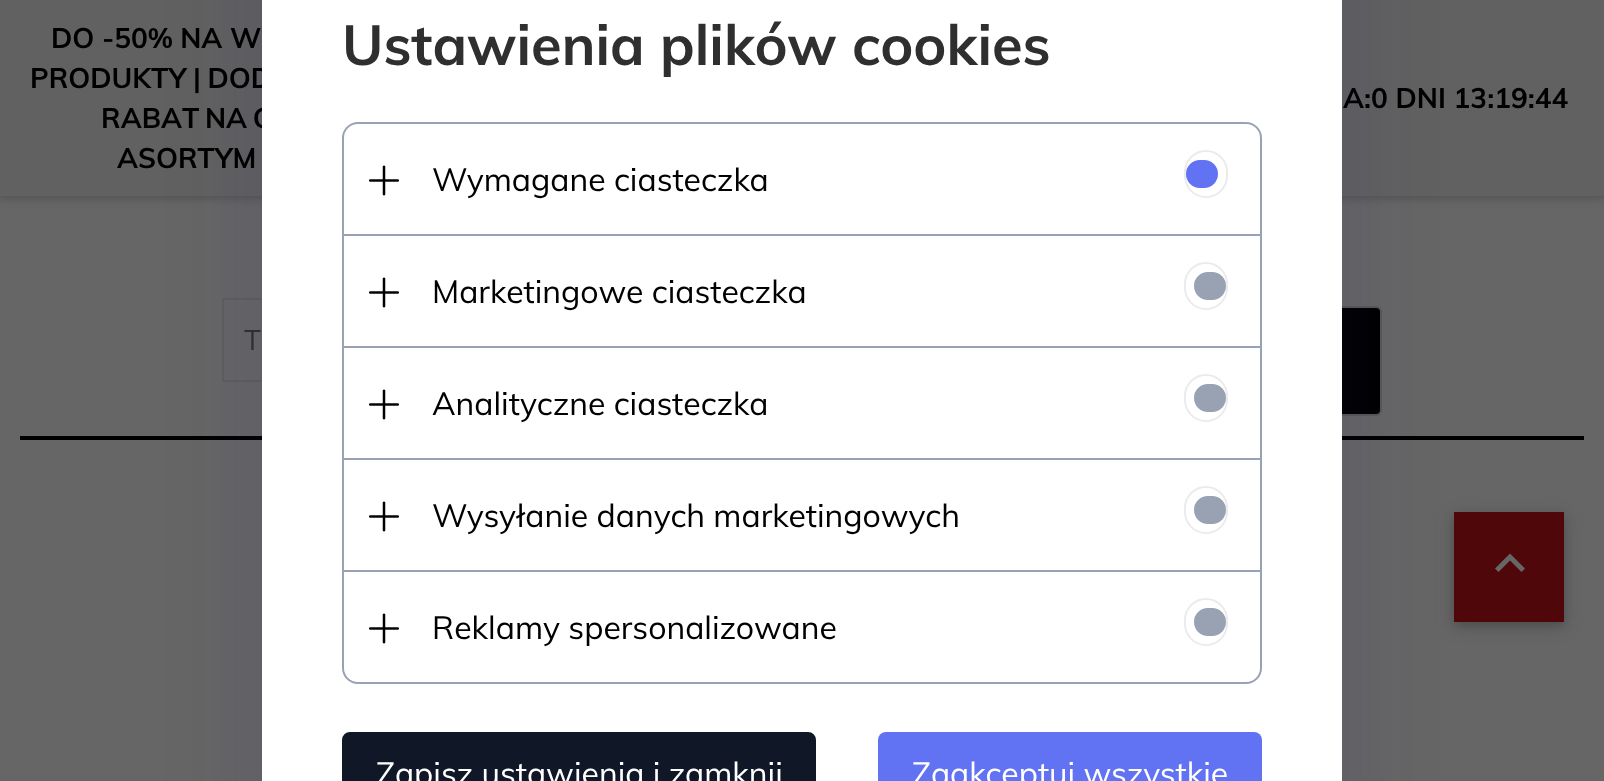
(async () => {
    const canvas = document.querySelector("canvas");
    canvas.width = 1604;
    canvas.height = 781;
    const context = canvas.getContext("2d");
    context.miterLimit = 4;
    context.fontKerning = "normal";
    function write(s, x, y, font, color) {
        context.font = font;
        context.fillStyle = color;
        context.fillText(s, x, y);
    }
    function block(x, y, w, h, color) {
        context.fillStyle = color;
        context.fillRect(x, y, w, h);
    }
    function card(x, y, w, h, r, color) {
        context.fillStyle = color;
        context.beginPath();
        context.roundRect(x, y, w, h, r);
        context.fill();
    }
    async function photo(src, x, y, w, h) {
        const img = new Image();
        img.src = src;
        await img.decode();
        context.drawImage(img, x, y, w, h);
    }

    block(0, 0, 1604, 781, "rgb(102, 102, 102)");
    context.fillStyle = "rgba(0, 0, 0, 0.2)";
    context.filter = "blur(5px)";
    context.beginPath();
    context.rect(-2, -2, 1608, 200);
    context.fill();
    context.filter = "none";
    block(0, 0, 1604, 196, "rgb(97, 97, 97)");
    block(20, 436, 1564, 4, "rgb(0, 0, 0)");
    context.strokeStyle = "rgb(94, 94, 94)";
    context.lineWidth = 2;
    context.strokeRect(223, 299, 372, 82);
    context.beginPath();
    context.roundRect(1053, 307, 328, 108, 5);
    context.fill();
    context.strokeStyle = "rgb(88, 88, 88)";
    context.stroke();
    context.fillStyle = "rgba(0, 0, 0, 0.12)";
    context.filter = "blur(10px)";
    context.beginPath();
    context.rect(1454, 516, 110, 110);
    context.fill();
    context.filter = "none";
    context.fillStyle = "rgba(0, 0, 0, 0.16)";
    context.filter = "blur(5px)";
    context.beginPath();
    context.rect(1454, 516, 110, 110);
    context.fill();
    context.filter = "none";
    block(1454, 512, 110, 110, "rgb(80, 7, 10)");
    context.fillStyle = "rgba(33, 26, 105, 0.15)";
    context.filter = "blur(48px)";
    context.beginPath();
    context.roundRect(262, -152, 1080, 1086, 32);
    context.fill();
    context.filter = "none";
    context.wordSpacing = "-1px";
    write("PRODUKTY | DOD", 30, 88, "bold 28px Muli", "rgb(0, 0, 0)");
    context.wordSpacing = "-2px";
    write("RABAT NA C", 101, 128, "bold 28px Muli", "rgb(0, 0, 0)");
    block(262, 0, 1080, 781, "rgb(255, 255, 255)");
    context.wordSpacing = "0px";
    write("Ustawienia plików cookies", 342, 65, "bold 56px Muli", "rgb(47, 47, 47)");
    context.beginPath();
    context.roundRect(343, 123, 918, 560, 15);
    context.strokeStyle = "rgb(152, 162, 179)";
    context.stroke();
    await photo("media/1.png", 369, 165, 30, 31);
    write("Wymagane ciasteczka", 432, 191, "32px Muli", "rgb(0, 0, 0)");
    context.beginPath();
    context.roundRect(1185, 151, 42, 46, 21);
    context.strokeStyle = "rgb(235, 235, 235)";
    context.stroke();
    context.fillStyle = "rgb(97, 114, 243)";
    context.beginPath();
    context.roundRect(1187, 161, 30, 26, 13);
    context.fill();
    context.strokeStyle = "rgb(97, 114, 243)";
    context.stroke();
    block(344, 234, 916, 2, "rgb(152, 162, 179)");
    await photo("media/1.png", 369, 277, 30, 31);
    write("Marketingowe ciasteczka", 432, 303, "32px Muli", "rgb(0, 0, 0)");
    context.beginPath();
    context.roundRect(1185, 263, 42, 46, 21);
    context.strokeStyle = "rgb(235, 235, 235)";
    context.stroke();
    context.fillStyle = "rgb(152, 162, 179)";
    context.beginPath();
    context.roundRect(1195, 273, 30, 26, 13);
    context.fill();
    context.strokeStyle = "rgb(152, 162, 179)";
    context.stroke();
    block(344, 346, 916, 2, "rgb(152, 162, 179)");
    await photo("media/1.png", 369, 389, 30, 31);
    write("Analityczne ciasteczka", 432, 415, "32px Muli", "rgb(0, 0, 0)");
    context.beginPath();
    context.roundRect(1185, 375, 42, 46, 21);
    context.strokeStyle = "rgb(235, 235, 235)";
    context.stroke();
    context.fillStyle = "rgb(152, 162, 179)";
    context.beginPath();
    context.roundRect(1195, 385, 30, 26, 13);
    context.fill();
    context.strokeStyle = "rgb(152, 162, 179)";
    context.stroke();
    block(344, 458, 916, 2, "rgb(152, 162, 179)");
    await photo("media/1.png", 369, 501, 30, 31);
    write("Wysyłanie danych marketingowych", 432, 527, "32px Muli", "rgb(0, 0, 0)");
    context.beginPath();
    context.roundRect(1185, 487, 42, 46, 21);
    context.strokeStyle = "rgb(235, 235, 235)";
    context.stroke();
    context.fillStyle = "rgb(152, 162, 179)";
    context.beginPath();
    context.roundRect(1195, 497, 30, 26, 13);
    context.fill();
    context.strokeStyle = "rgb(152, 162, 179)";
    context.stroke();
    block(344, 570, 916, 2, "rgb(152, 162, 179)");
    await photo("media/1.png", 369, 613, 30, 31);
    write("Reklamy spersonalizowane", 432, 639, "32px Muli", "rgb(0, 0, 0)");
    context.beginPath();
    context.roundRect(1185, 599, 42, 46, 21);
    context.strokeStyle = "rgb(235, 235, 235)";
    context.stroke();
    context.fillStyle = "rgb(152, 162, 179)";
    context.beginPath();
    context.roundRect(1195, 609, 30, 26, 13);
    context.fill();
    context.strokeStyle = "rgb(152, 162, 179)";
    context.stroke();
    context.fillStyle = "rgb(16, 24, 40)";
    context.beginPath();
    context.roundRect(343, 733, 472, 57, 7);
    context.fill();
    context.strokeStyle = "rgb(16, 24, 40)";
    context.stroke();
    write("Zapisz ustawienia i zamknij", 376, 785, "32px Muli", "rgb(255, 255, 255)");
    card(878, 732, 384, 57, 8, "rgb(97, 114, 243)");
    write("Zaakceptuj wszystkie", 912, 785, "32px Muli", "rgb(255, 255, 255)");
    write("DO -50% NA W", 51, 48, "bold 28px Muli", "rgb(0, 0, 0)");
    write("ASORTYM", 117, 168, "bold 28px Muli", "rgb(0, 0, 0)");
    write("A:", 1343, 108, "bold 28px Muli", "rgb(0, 0, 0)");
    write("0 DNI 13:19:44", 1371, 108, "bold 28px Muli", "rgb(0, 0, 0)");
    write("T", 244, 350, "28px Muli", "rgb(47, 47, 47)");
    context.fillStyle = "rgb(102, 102, 102)";
    context.beginPath();
    context.moveTo(1498.5, 572);
    context.lineTo(1510, 560.5);
    context.lineTo(1521.5, 572);
    context.lineTo(1525, 568.5);
    context.lineTo(1510, 553.5);
    context.lineTo(1495, 568.5);
    context.closePath();
    context.fill();
})();
